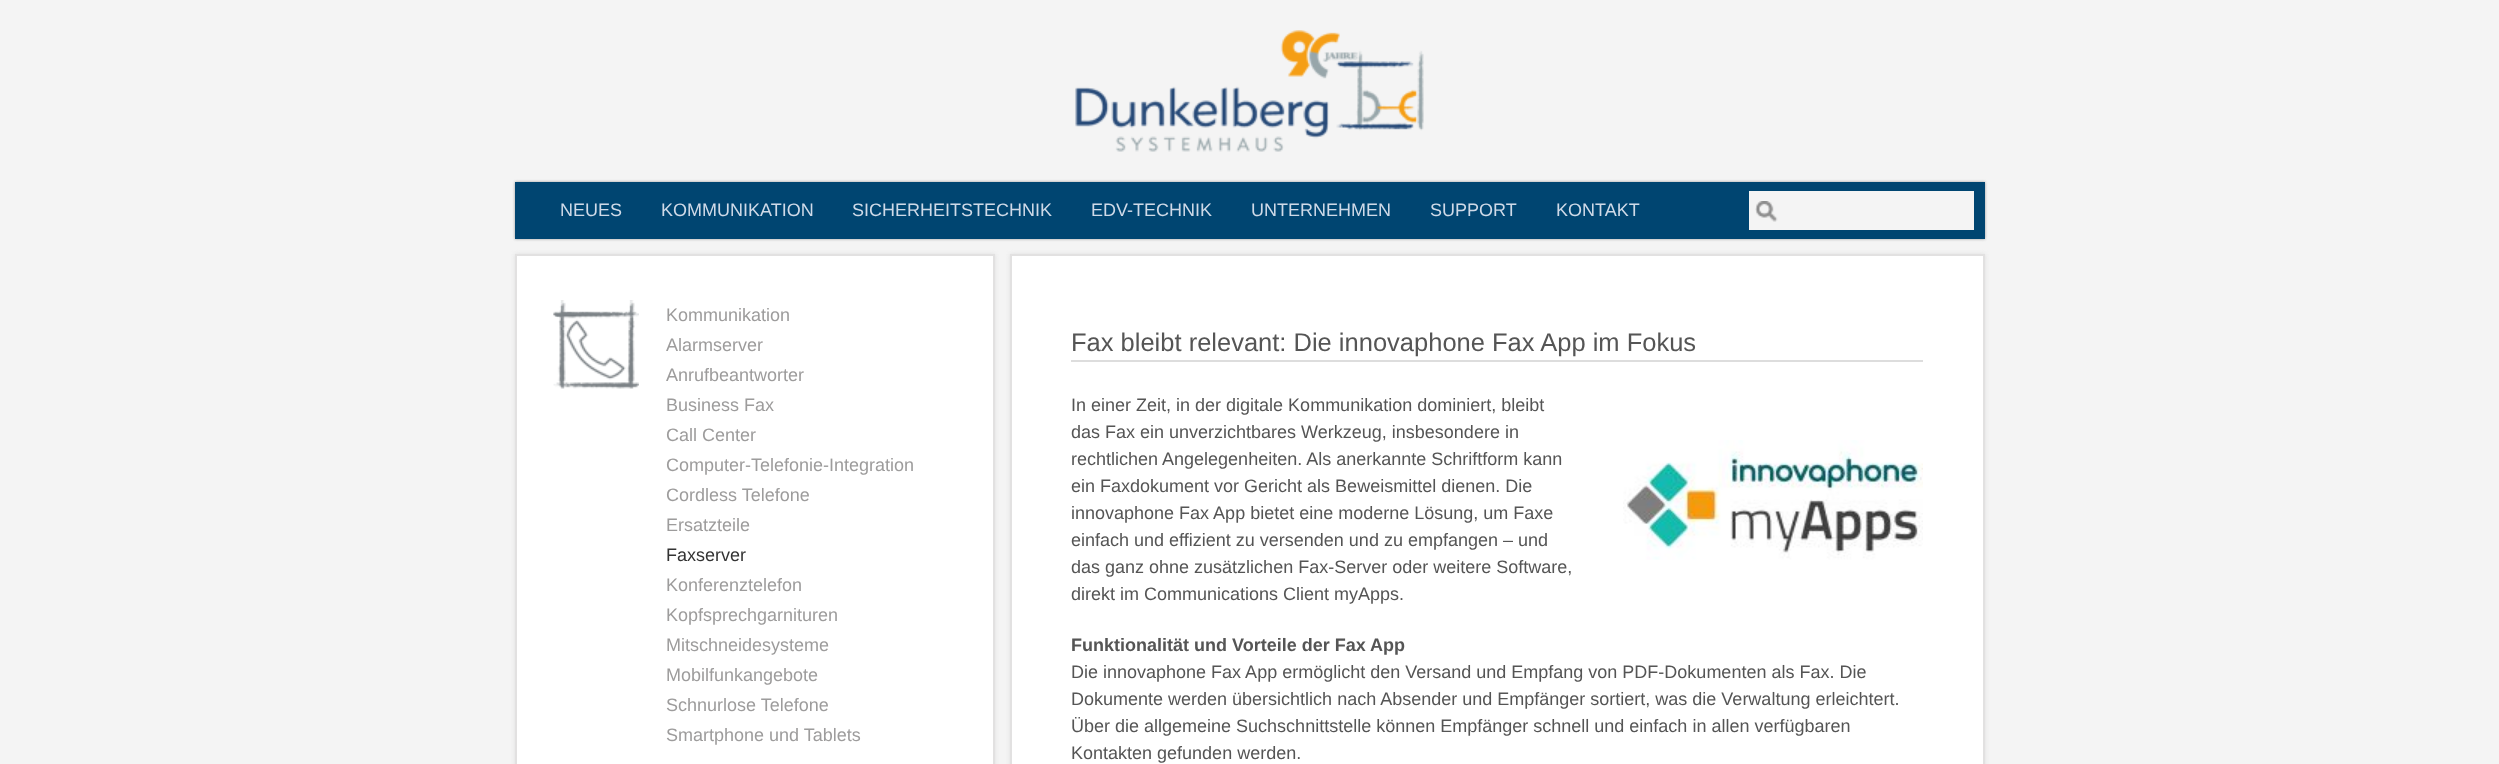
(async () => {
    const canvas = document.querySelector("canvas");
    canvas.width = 2499;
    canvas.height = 764;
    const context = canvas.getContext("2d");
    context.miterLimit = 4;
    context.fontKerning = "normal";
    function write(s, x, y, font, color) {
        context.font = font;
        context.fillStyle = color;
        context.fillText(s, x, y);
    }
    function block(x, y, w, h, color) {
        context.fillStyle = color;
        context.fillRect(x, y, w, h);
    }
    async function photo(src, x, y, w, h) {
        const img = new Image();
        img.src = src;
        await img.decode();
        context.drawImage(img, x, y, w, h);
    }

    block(0, 0, 2499, 764, "rgb(244, 244, 244)");
    await photo("media/1.png", 1075, 30, 349, 122);
    context.fillStyle = "rgb(153, 153, 153)";
    context.filter = "blur(1.5px)";
    context.beginPath();
    context.rect(515, 182, 1470, 57);
    context.fill();
    context.filter = "none";
    block(515, 182, 1470, 57, "rgb(0, 69, 113)");
    write("NEUES", 560, 216, "18px Liberation Sans", "rgb(207, 218, 232)");
    write("KOMMUNIKATION", 661, 216, "18px Liberation Sans", "rgb(207, 218, 232)");
    write("SICHERHEITSTECHNIK", 852, 216, "18px Liberation Sans", "rgb(207, 218, 232)");
    write("EDV-TECHNIK", 1091, 216, "18px Liberation Sans", "rgb(207, 218, 232)");
    write("UNTERNEHMEN", 1251, 216, "18px Liberation Sans", "rgb(207, 218, 232)");
    write("SUPPORT", 1430, 216, "18px Liberation Sans", "rgb(207, 218, 232)");
    write("KONTAKT", 1556, 216, "18px Liberation Sans", "rgb(207, 218, 232)");
    block(1749, 191, 225, 39, "rgb(244, 244, 244)");
    await photo("media/2.png", 1755, 201, 23, 21);
    context.fillStyle = "rgb(224, 224, 224)";
    context.filter = "blur(2px)";
    context.beginPath();
    context.rect(515, 254, 480, 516);
    context.fill();
    context.filter = "none";
    context.fillStyle = "rgb(255, 255, 255)";
    context.beginPath();
    context.rect(516, 255, 478, 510);
    context.fill();
    context.strokeStyle = "rgb(226, 225, 225)";
    context.lineWidth = 2;
    context.stroke();
    await photo("media/3.png", 553, 300, 86, 89);
    await photo("media/4.png", 553, 300, 86, 30);
    write("Kommunikation", 666, 321, "18px Liberation Sans", "rgb(157, 156, 156)");
    write("Alarmserver", 666, 351, "18px Liberation Sans", "rgb(157, 156, 156)");
    write("Anrufbeantworter", 666, 381, "18px Liberation Sans", "rgb(157, 156, 156)");
    write("Business Fax", 666, 411, "18px Liberation Sans", "rgb(157, 156, 156)");
    write("Call Center", 666, 441, "18px Liberation Sans", "rgb(157, 156, 156)");
    write("Computer-Telefonie-Integration", 666, 471, "18px Liberation Sans", "rgb(157, 156, 156)");
    write("Cordless Telefone", 666, 501, "18px Liberation Sans", "rgb(157, 156, 156)");
    write("Ersatzteile", 666, 531, "18px Liberation Sans", "rgb(157, 156, 156)");
    write("Faxserver", 666, 561, "18px Liberation Sans", "rgb(51, 51, 51)");
    write("Konferenztelefon", 666, 591, "18px Liberation Sans", "rgb(157, 156, 156)");
    write("Kopfsprechgarnituren", 666, 621, "18px Liberation Sans", "rgb(157, 156, 156)");
    write("Mitschneidesysteme", 666, 651, "18px Liberation Sans", "rgb(157, 156, 156)");
    write("Mobilfunkangebote", 666, 681, "18px Liberation Sans", "rgb(157, 156, 156)");
    write("Schnurlose Telefone", 666, 711, "18px Liberation Sans", "rgb(157, 156, 156)");
    write("Smartphone und Tablets", 666, 741, "18px Liberation Sans", "rgb(157, 156, 156)");
    context.fillStyle = "rgb(224, 224, 224)";
    context.filter = "blur(2px)";
    context.beginPath();
    context.rect(1010, 254, 975, 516);
    context.fill();
    context.filter = "none";
    context.fillStyle = "rgb(255, 255, 255)";
    context.beginPath();
    context.rect(1011, 255, 973, 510);
    context.fill();
    context.stroke();
    block(1071, 360, 852, 2, "rgb(221, 221, 221)");
    write("Fax bleibt relevant: Die innovaphone Fax App im Fokus", 1071, 351, "25.5px Liberation Sans", "rgb(85, 85, 85)");
    write("In einer Zeit, in der digitale Kommunikation dominiert, bleibt", 1071, 411, "18px Liberation Sans", "rgb(85, 85, 85)");
    write("das Fax ein unverzichtbares Werkzeug, insbesondere in", 1071, 438, "18px Liberation Sans", "rgb(85, 85, 85)");
    write("rechtlichen Angelegenheiten. Als anerkannte Schriftform kann", 1071, 465, "18px Liberation Sans", "rgb(85, 85, 85)");
    write("ein Faxdokument vor Gericht als Beweismittel dienen. Die", 1071, 492, "18px Liberation Sans", "rgb(85, 85, 85)");
    write("innovaphone Fax App bietet eine moderne Lösung, um Faxe", 1071, 519, "18px Liberation Sans", "rgb(85, 85, 85)");
    write("einfach und effizient zu versenden und zu empfangen – und", 1071, 546, "18px Liberation Sans", "rgb(85, 85, 85)");
    write("das ganz ohne zusätzlichen Fax-Server oder weitere Software,", 1071, 573, "18px Liberation Sans", "rgb(85, 85, 85)");
    write("direkt im Communications Client myApps.", 1071, 600, "18px Liberation Sans", "rgb(85, 85, 85)");
    await photo("media/5.png", 1623, 440, 300, 120);
    write("Funktionalität und Vorteile der Fax App", 1071, 651, "bold 18px Liberation Sans", "rgb(85, 85, 85)");
    write("Die innovaphone Fax App ermöglicht den Versand und Empfang von PDF-Dokumenten als Fax. Die", 1071, 678, "18px Liberation Sans", "rgb(85, 85, 85)");
    write("Dokumente werden übersichtlich nach Absender und Empfänger sortiert, was die Verwaltung erleichtert.", 1071, 705, "18px Liberation Sans", "rgb(85, 85, 85)");
    write("Über die allgemeine Suchschnittstelle können Empfänger schnell und einfach in allen verfügbaren", 1071, 732, "18px Liberation Sans", "rgb(85, 85, 85)");
    write("Kontakten gefunden werden.", 1071, 759, "18px Liberation Sans", "rgb(85, 85, 85)");
})();
